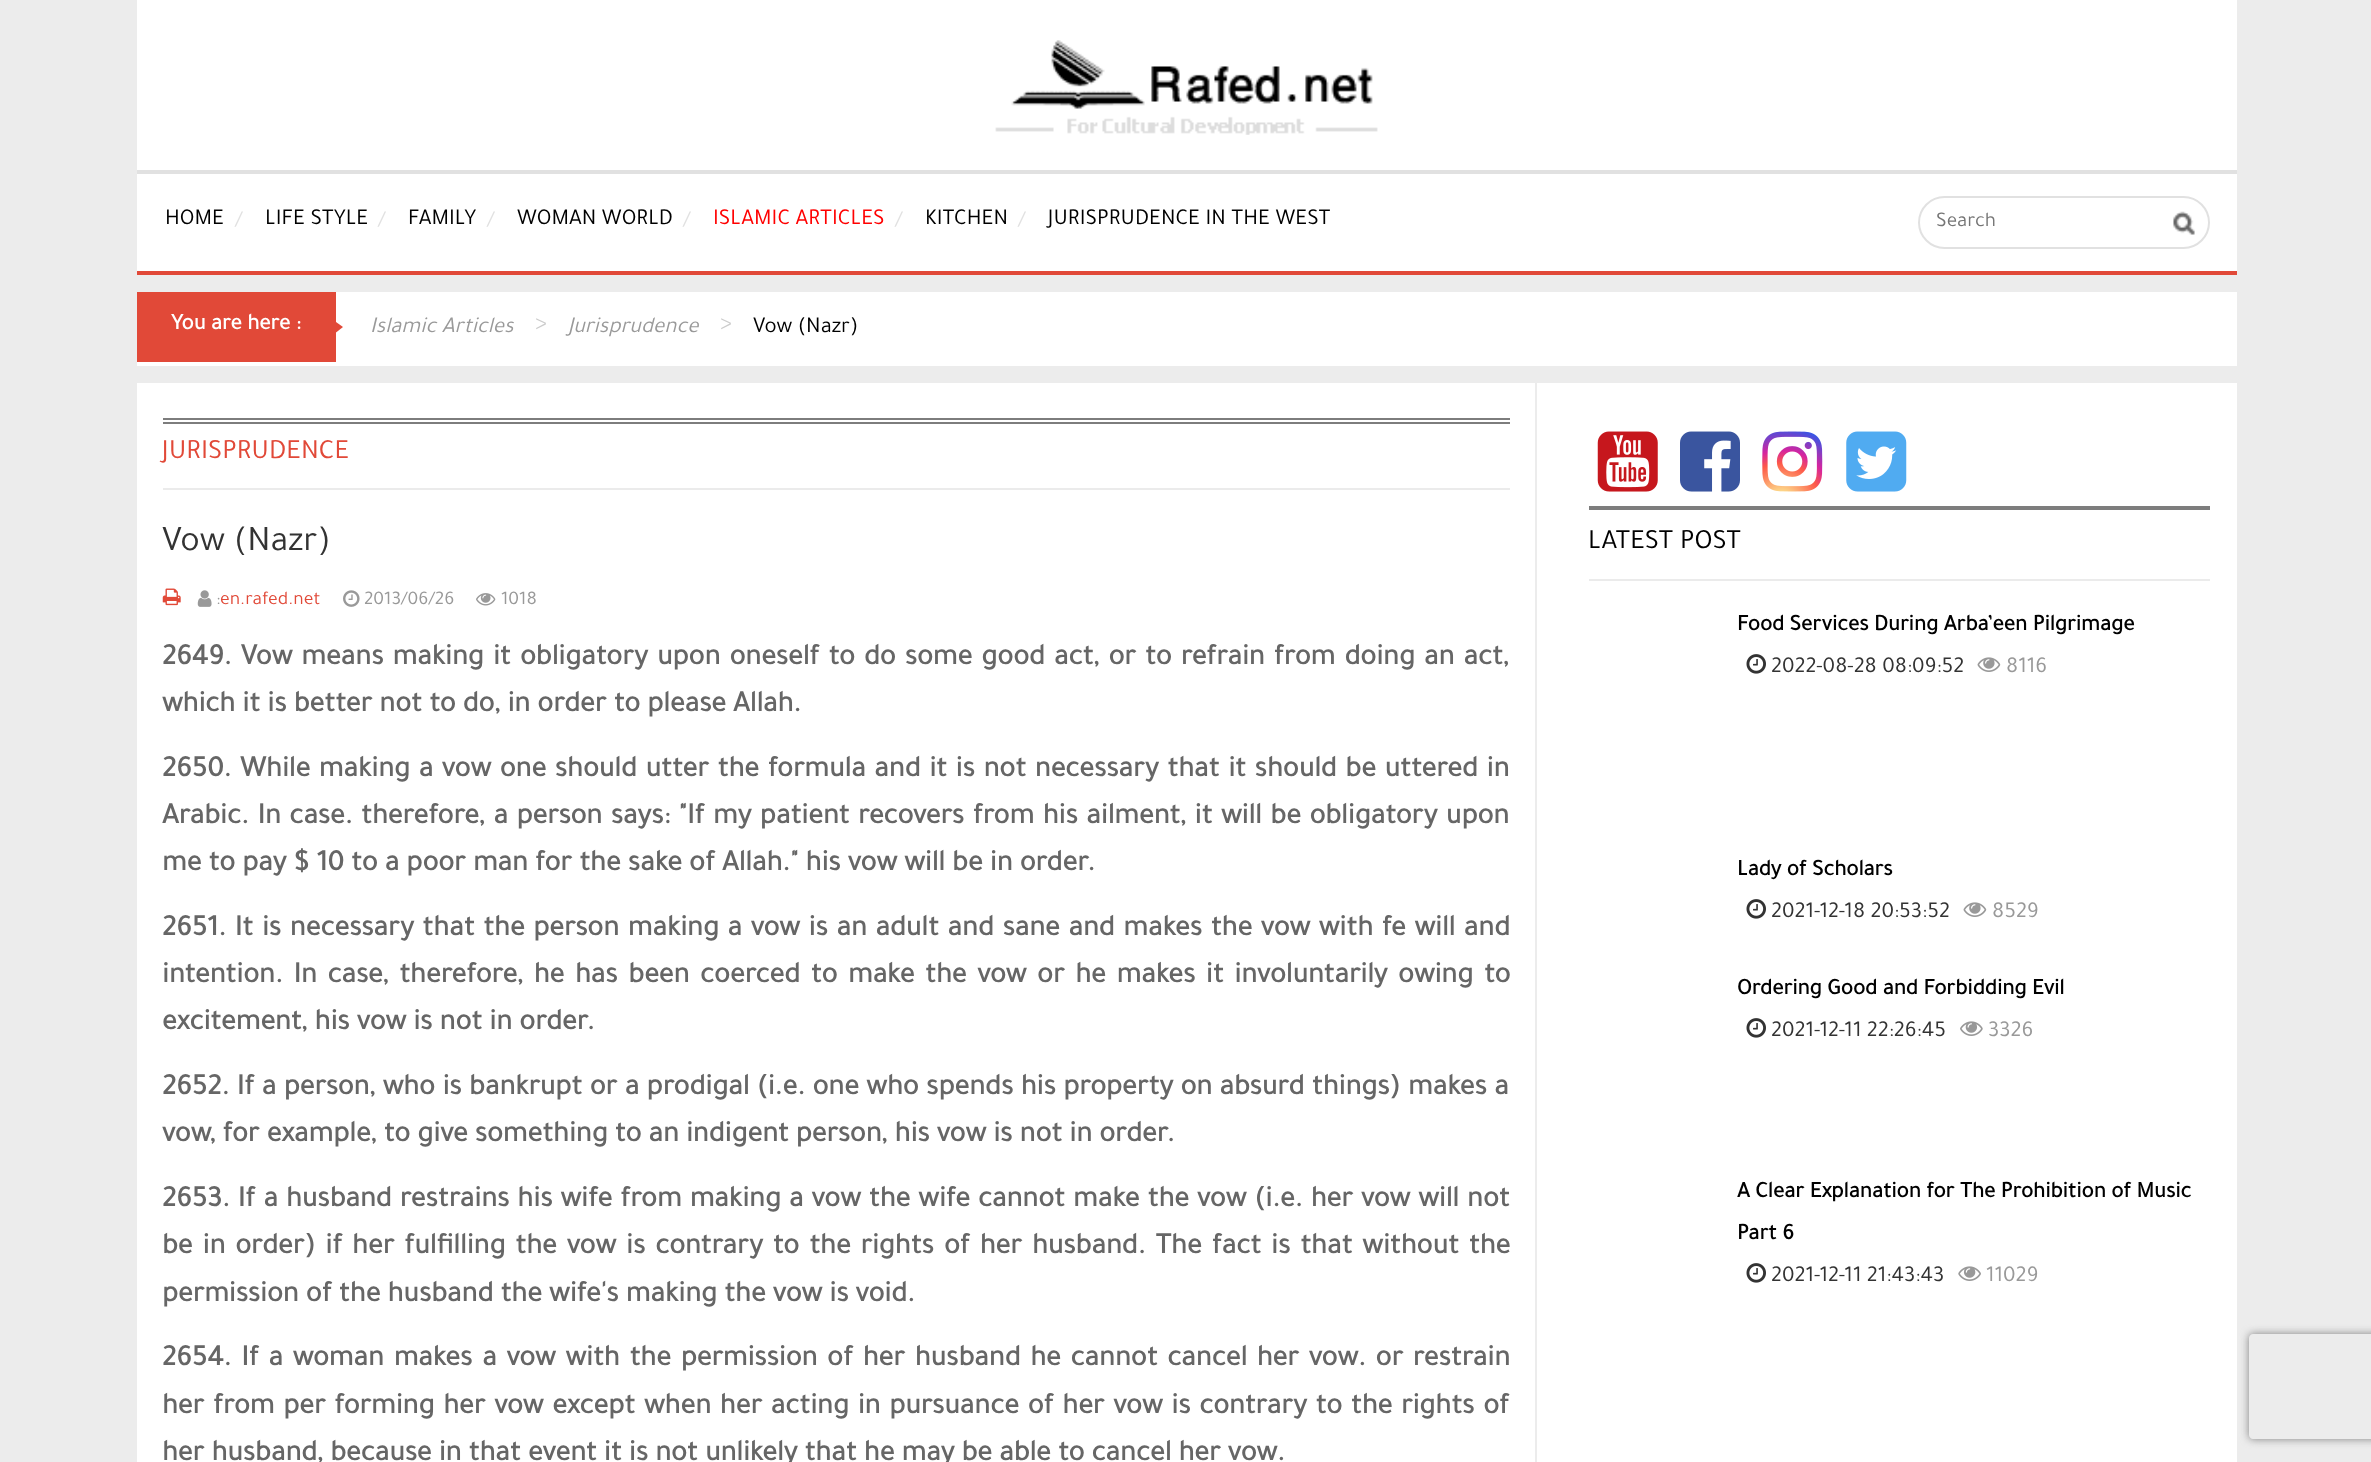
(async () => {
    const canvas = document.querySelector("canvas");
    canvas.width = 2371;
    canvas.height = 1462;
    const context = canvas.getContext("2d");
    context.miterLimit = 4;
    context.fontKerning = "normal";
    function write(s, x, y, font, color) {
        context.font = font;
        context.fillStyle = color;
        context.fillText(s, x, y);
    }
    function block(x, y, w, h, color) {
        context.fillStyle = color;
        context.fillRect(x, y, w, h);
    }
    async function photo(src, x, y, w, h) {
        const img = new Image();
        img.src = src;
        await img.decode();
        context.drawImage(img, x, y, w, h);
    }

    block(0, 0, 2371, 1462, "rgb(236, 236, 236)");
    block(137, 0, 2100, 170, "rgb(255, 255, 255)");
    await photo("media/1.png", 995, 40, 383, 95);
    block(137, 174, 2100, 97, "rgb(255, 255, 255)");
    block(137, 170, 2100, 4, "rgb(225, 225, 225)");
    block(137, 271, 2100, 4, "rgb(225, 73, 56)");
    write("HOME", 165, 224, "22.75px Tajawal", "rgb(0, 0, 0)");
    write("/", 235, 226, "22.75px Tajawal", "rgb(225, 225, 225)");
    write("LIFE STYLE", 265, 224, "22.75px Tajawal", "rgb(0, 0, 0)");
    write("/", 378, 226, "22.75px Tajawal", "rgb(225, 225, 225)");
    write("FAMILY", 408, 224, "22.75px Tajawal", "rgb(0, 0, 0)");
    write("/", 487, 226, "22.75px Tajawal", "rgb(225, 225, 225)");
    write("WOMAN WORLD", 517, 224, "22.75px Tajawal", "rgb(0, 0, 0)");
    write("/", 683, 226, "22.75px Tajawal", "rgb(225, 225, 225)");
    write("ISLAMIC ARTICLES", 713, 224, "22.75px Tajawal", "rgb(255, 0, 0)");
    write("/", 895, 226, "22.75px Tajawal", "rgb(225, 225, 225)");
    write("KITCHEN", 925, 224, "22.75px Tajawal", "rgb(0, 0, 0)");
    write("/", 1018, 226, "22.75px Tajawal", "rgb(225, 225, 225)");
    write("JURISPRUDENCE IN THE WEST", 1048, 224, "22.75px Tajawal", "rgb(0, 0, 0)");
    await photo("media/2.png", 2173, 211, 22, 24);
    context.beginPath();
    context.roundRect(1919, 197, 290, 51, 25.5);
    context.strokeStyle = "rgb(225, 225, 225)";
    context.lineWidth = 2;
    context.stroke();
    write("Search", 1936, 226, "21px Tajawal", "rgb(117, 117, 117)");
    block(137, 292, 2100, 74, "rgb(255, 255, 255)");
    block(137, 292, 199, 70, "rgb(225, 73, 56)");
    write("You are here :", 171, 329, "bold 22.75px Tajawal", "rgb(255, 255, 255)");
    context.fillStyle = "rgb(225, 73, 56)";
    context.beginPath();
    context.moveTo(336, 332.5);
    context.lineTo(336, 322);
    context.lineTo(343, 327);
    context.closePath();
    context.fill();
    write("Islamic Articles", 370, 332, "italic 22.75px Tajawal", "rgb(153, 153, 153)");
    write(">", 535, 329, "22.75px Tajawal", "rgb(204, 204, 204)");
    write("Jurisprudence", 568, 332, "italic 22.75px Tajawal", "rgb(153, 153, 153)");
    write(">", 720, 329, "22.75px Tajawal", "rgb(204, 204, 204)");
    write("Vow (Nazr)", 753, 332, "22.75px Tajawal", "rgb(0, 0, 0)");
    context.save();
    context.beginPath();
    context.moveTo(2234, 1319);
    context.lineTo(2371, 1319);
    context.lineTo(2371, 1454);
    context.lineTo(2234, 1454);
    context.closePath();
    context.moveTo(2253, 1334);
    context.lineTo(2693, 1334);
    context.bezierCurveTo(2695, 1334, 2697, 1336, 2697, 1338);
    context.lineTo(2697, 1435);
    context.bezierCurveTo(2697, 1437, 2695, 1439, 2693, 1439);
    context.lineTo(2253, 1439);
    context.bezierCurveTo(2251, 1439, 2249, 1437, 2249, 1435);
    context.lineTo(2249, 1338);
    context.bezierCurveTo(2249, 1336, 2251, 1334, 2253, 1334);
    context.closePath();
    context.clip("evenodd");
    context.fillStyle = "rgb(128, 128, 128)";
    context.filter = "blur(4.5px)";
    context.beginPath();
    context.roundRect(2249, 1334, 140, 105, 4);
    context.fill();
    context.filter = "none";
    context.restore();
    block(137, 383, 2100, 1079, "rgb(255, 255, 255)");
    block(163, 418, 1347, 2, "rgb(125, 125, 125)");
    block(163, 488, 1347, 2, "rgb(235, 235, 235)");
    block(163, 422, 1347, 2, "rgb(125, 125, 125)");
    write("JURISPRUDENCE", 162, 458, "28px Tajawal", "rgb(225, 73, 56)");
    write("Vow (Nazr)", 162, 550, "36.5px Tajawal", "rgb(51, 51, 51)");
    await photo("media/3.png", 162, 588, 19, 18);
    await photo("media/4.png", 197, 590, 15, 17);
    write(":", 216, 604, "19.5px Tajawal", "rgb(153, 153, 153)");
    write("en.rafed.net", 220, 604, "19.5px Tajawal", "rgb(225, 73, 56)");
    await photo("media/5.png", 343, 590, 17, 17);
    write("2013/06/26", 364, 604, "19.5px Tajawal", "rgb(153, 153, 153)");
    await photo("media/6.png", 476, 593, 20, 13);
    write("1018", 501, 604, "19.5px Tajawal", "rgb(153, 153, 153)");
    context.wordSpacing = "2px";
    write("2649. Vow means making it obligatory upon oneself to do some good act, or to refrain from doing an act,", 162, 664, "bold 29.75px Tajawal", "rgb(102, 102, 102)");
    context.wordSpacing = "0px";
    write("which it is better not to do, in order to please Allah.", 162, 711, "bold 29.75px Tajawal", "rgb(102, 102, 102)");
    context.wordSpacing = "1.5px";
    write("2650. While making a vow one should utter the formula and it is not necessary that it should be uttered in", 162, 776, "bold 29.75px Tajawal", "rgb(102, 102, 102)");
    context.wordSpacing = "1.4px";
    write("Arabic. In case. therefore, a person says: \"If my patient recovers from his ailment, it will be obligatory upon", 162, 823, "bold 29.75px Tajawal", "rgb(102, 102, 102)");
    context.wordSpacing = "0px";
    write("me to pay $ 10 to a poor man for the sake of Allah.\" his vow will be in order.", 162, 870, "bold 29.75px Tajawal", "rgb(102, 102, 102)");
    context.wordSpacing = "1.5px";
    write("2651. It is necessary that the person making a vow is an adult and sane and makes the vow with fe will and", 162, 935, "bold 29.75px Tajawal", "rgb(102, 102, 102)");
    context.wordSpacing = "3.5px";
    write("intention. In case, therefore, he has been coerced to make the vow or he makes it involuntarily owing to", 162, 982, "bold 29.75px Tajawal", "rgb(102, 102, 102)");
    context.wordSpacing = "0px";
    write("excitement, his vow is not in order.", 162, 1029, "bold 29.75px Tajawal", "rgb(102, 102, 102)");
    context.wordSpacing = "0.3px";
    write("2652. If a person, who is bankrupt or a prodigal (i.e. one who spends his property on absurd things) makes a", 162, 1094, "bold 29.75px Tajawal", "rgb(102, 102, 102)");
    context.wordSpacing = "0px";
    write("vow, for example, to give something to an indigent person, his vow is not in order.", 162, 1141, "bold 29.75px Tajawal", "rgb(102, 102, 102)");
    context.wordSpacing = "0.9px";
    write("2653. If a husband restrains his wife from making a vow the wife cannot make the vow (i.e. her vow will not", 162, 1206, "bold 29.75px Tajawal", "rgb(102, 102, 102)");
    context.wordSpacing = "2.8px";
    write("be in order) if her fulfilling the vow is contrary to the rights of her husband. The fact is that without the", 162, 1253, "bold 29.75px Tajawal", "rgb(102, 102, 102)");
    context.wordSpacing = "0px";
    write("permission of the husband the wife's making the vow is void.", 162, 1301, "bold 29.75px Tajawal", "rgb(102, 102, 102)");
    context.wordSpacing = "2.6px";
    write("2654. If a woman makes a vow with the permission of her husband he cannot cancel her vow. or restrain", 162, 1365, "bold 29.75px Tajawal", "rgb(102, 102, 102)");
    context.wordSpacing = "1.6px";
    write("her from per forming her vow except when her acting in pursuance of her vow is contrary to the rights of", 162, 1413, "bold 29.75px Tajawal", "rgb(102, 102, 102)");
    context.wordSpacing = "0px";
    write("her husband, because in that event it is not unlikely that he may be able to cancel her vow.", 162, 1460, "bold 29.75px Tajawal", "rgb(102, 102, 102)");
    block(1535, 383, 2, 1079, "rgb(236, 236, 236)");
    await photo("media/7.png", 1597, 431, 61, 61);
    await photo("media/8.png", 1680, 431, 60, 61);
    await photo("media/9.png", 1762, 431, 61, 61);
    await photo("media/10.png", 1846, 431, 61, 61);
    block(1589, 506, 621, 4, "rgb(125, 125, 125)");
    block(1589, 579, 621, 2, "rgb(235, 235, 235)");
    write("LATEST POST", 1588, 548, "28px Tajawal", "rgb(0, 0, 0)");
    write("Food Services During Arba’een Pilgrimage", 1737, 630, "bold 22.75px Tajawal", "rgb(0, 0, 0)");
    await photo("media/11.png", 1746, 654, 20, 20);
    write("2022-08-28 08:09:52", 1771, 672, "22.75px Tajawal", "rgb(51, 51, 51)");
    await photo("media/12.png", 1977, 657, 24, 15);
    write("8116", 2006, 672, "22.75px Tajawal", "rgb(153, 153, 153)");
    write("Lady of Scholars", 1737, 875, "bold 22.75px Tajawal", "rgb(0, 0, 0)");
    await photo("media/11.png", 1746, 899, 20, 20);
    write("2021-12-18 20:53:52", 1771, 917, "22.75px Tajawal", "rgb(51, 51, 51)");
    await photo("media/12.png", 1963, 902, 24, 15);
    write("8529", 1992, 917, "22.75px Tajawal", "rgb(153, 153, 153)");
    write("Ordering Good and Forbidding Evil", 1737, 994, "bold 22.75px Tajawal", "rgb(0, 0, 0)");
    await photo("media/11.png", 1746, 1018, 20, 20);
    write("2021-12-11 22:26:45", 1771, 1036, "22.75px Tajawal", "rgb(51, 51, 51)");
    await photo("media/13.png", 1960, 1021, 23, 15);
    write("3326", 1988, 1036, "22.75px Tajawal", "rgb(153, 153, 153)");
    write("A Clear Explanation for The Prohibition of Music", 1737, 1197, "bold 22.75px Tajawal", "rgb(0, 0, 0)");
    write("Part 6", 1737, 1239, "bold 22.75px Tajawal", "rgb(0, 0, 0)");
    await photo("media/11.png", 1746, 1263, 20, 20);
    write("2021-12-11 21:43:43", 1771, 1281, "22.75px Tajawal", "rgb(51, 51, 51)");
    await photo("media/14.png", 1958, 1266, 23, 15);
    write("11029", 1986, 1281, "22.75px Tajawal", "rgb(153, 153, 153)");
})();
